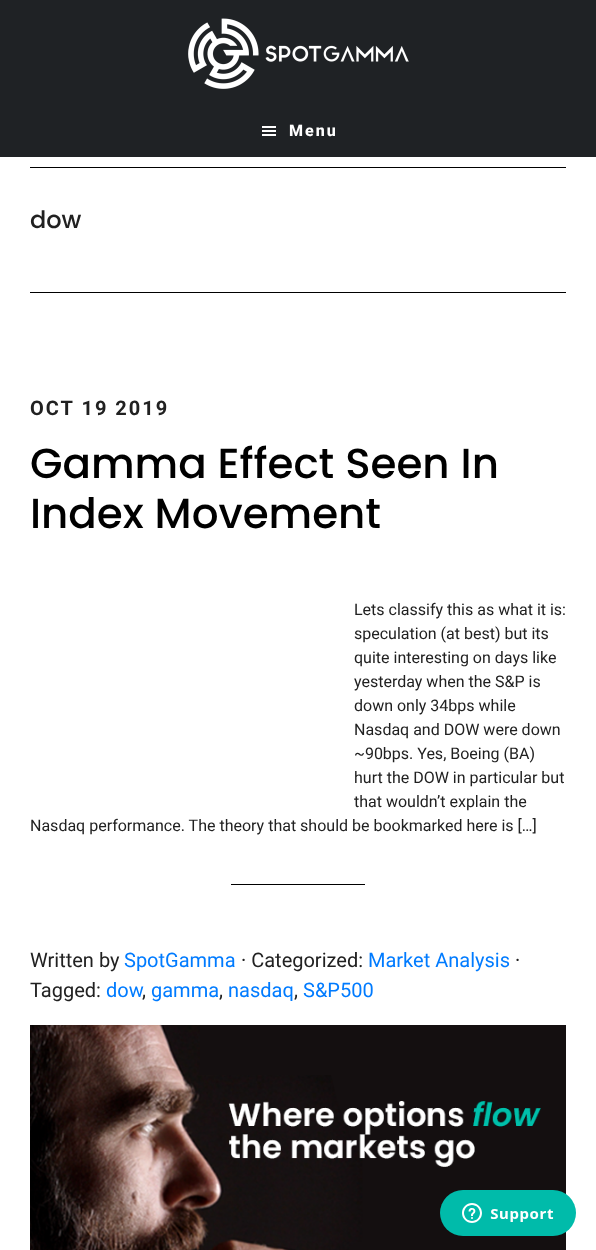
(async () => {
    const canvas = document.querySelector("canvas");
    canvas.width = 596;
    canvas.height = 1250;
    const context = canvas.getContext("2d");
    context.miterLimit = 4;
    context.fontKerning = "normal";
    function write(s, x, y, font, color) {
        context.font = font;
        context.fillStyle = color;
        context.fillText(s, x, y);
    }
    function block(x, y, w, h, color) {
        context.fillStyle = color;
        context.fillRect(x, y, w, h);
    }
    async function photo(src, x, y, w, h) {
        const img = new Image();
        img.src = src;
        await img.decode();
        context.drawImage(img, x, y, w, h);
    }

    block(0, 0, 596, 1250, "rgb(255, 255, 255)");
    block(0, 0, 596, 157, "rgb(31, 34, 37)");
    await photo("media/1.png", 188, 18, 221, 71);
    await photo("media/2.png", 262, 126, 14, 10);
    context.letterSpacing = "2px";
    write("Menu", 289, 136, "800 16px Roboto", "rgb(255, 255, 255)");
    block(30, 167, 536, 1, "rgb(0, 0, 0)");
    block(30, 292, 536, 1, "rgb(0, 0, 0)");
    context.letterSpacing = "0px";
    write("dow", 30, 228, "500 24px Poppins", "rgb(33, 33, 33)");
    context.letterSpacing = "2px";
    write("OCT 19 2019", 30, 415, "bold 20px Roboto", "rgb(33, 33, 33)");
    context.letterSpacing = "0px";
    write("Gamma Effect Seen In", 30, 478, "500 42px Poppins", "rgb(0, 0, 0)");
    write("Index Movement", 30, 528, "500 42px Poppins", "rgb(0, 0, 0)");
    write("Lets classify this as what it is:", 354, 615, "16px Roboto", "rgb(33, 33, 33)");
    write("speculation (at best) but its", 354, 639, "16px Roboto", "rgb(33, 33, 33)");
    write("quite interesting on days like", 354, 663, "16px Roboto", "rgb(33, 33, 33)");
    write("yesterday when the S&P is", 354, 687, "16px Roboto", "rgb(33, 33, 33)");
    write("down only 34bps while", 354, 711, "16px Roboto", "rgb(33, 33, 33)");
    write("Nasdaq and DOW were down", 354, 735, "16px Roboto", "rgb(33, 33, 33)");
    write("~90bps. Yes, Boeing (BA)", 354, 759, "16px Roboto", "rgb(33, 33, 33)");
    write("hurt the DOW in particular but", 354, 783, "16px Roboto", "rgb(33, 33, 33)");
    write("that wouldn’t explain the", 354, 807, "16px Roboto", "rgb(33, 33, 33)");
    write("Nasdaq performance. The theory that should be bookmarked here is […]", 30, 831, "16px Roboto", "rgb(33, 33, 33)");
    block(231, 884, 134, 1, "rgb(0, 0, 0)");
    write("Written by", 30, 967, "20px Roboto", "rgb(33, 33, 33)");
    write("SpotGamma", 124, 967, "20px Roboto", "rgb(0, 123, 255)");
    write("· Categorized:", 241, 967, "20px Roboto", "rgb(33, 33, 33)");
    write("Market Analysis", 368, 967, "20px Roboto", "rgb(0, 123, 255)");
    write("·", 515, 967, "20px Roboto", "rgb(33, 33, 33)");
    write("Tagged:", 30, 997, "20px Roboto", "rgb(33, 33, 33)");
    write("dow", 106, 997, "20px Roboto", "rgb(0, 123, 255)");
    write(",", 142, 997, "20px Roboto", "rgb(33, 33, 33)");
    write("gamma", 151, 997, "20px Roboto", "rgb(0, 123, 255)");
    write(",", 219, 997, "20px Roboto", "rgb(33, 33, 33)");
    write("nasdaq", 228, 997, "20px Roboto", "rgb(0, 123, 255)");
    write(",", 294, 997, "20px Roboto", "rgb(33, 33, 33)");
    write("S&P500", 303, 997, "20px Roboto", "rgb(0, 123, 255)");
    await photo("media/3.png", 30, 1025, 536, 225);
    await photo("media/4.png", 440, 1190, 136, 46);
})();
